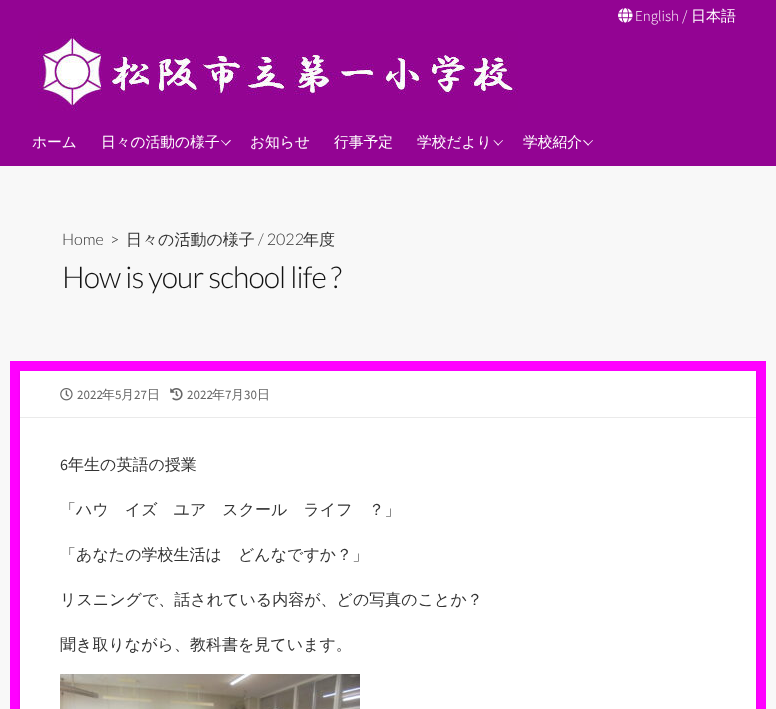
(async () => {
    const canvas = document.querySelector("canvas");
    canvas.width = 776;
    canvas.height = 709;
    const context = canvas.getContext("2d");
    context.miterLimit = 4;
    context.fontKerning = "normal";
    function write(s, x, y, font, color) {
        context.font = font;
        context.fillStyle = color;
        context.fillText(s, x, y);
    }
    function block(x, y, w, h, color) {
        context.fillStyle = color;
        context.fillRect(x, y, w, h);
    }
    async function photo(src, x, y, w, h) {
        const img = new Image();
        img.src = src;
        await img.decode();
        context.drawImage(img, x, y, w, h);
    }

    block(0, 0, 776, 709, "rgb(248, 248, 248)");
    context.fillStyle = "rgba(0, 0, 0, 0.4)";
    context.filter = "blur(0.5px)";
    context.beginPath();
    context.rect(1, 0, 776, 166);
    context.fill();
    context.filter = "none";
    block(0, 0, 776, 166, "rgb(147, 4, 147)");
    await photo("media/1.png", 618, 8, 15, 15);
    write("English /", 635, 21, "300 15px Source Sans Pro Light", "rgb(255, 255, 255)");
    write("日本語", 691, 21, "500 15px WenQuanYi Zen Hei", "rgb(255, 255, 255)");
    await photo("media/2.png", 38, 31, 480, 80);
    write("ホーム", 32, 147, "500 14.75px WenQuanYi Zen Hei", "rgb(255, 255, 255)");
    write("日々の活動の様子", 101, 147, "500 14.75px WenQuanYi Zen Hei", "rgb(255, 255, 255)");
    context.beginPath();
    context.moveTo(230, 140);
    context.lineTo(231, 140.5);
    context.lineTo(226, 145.5);
    context.lineTo(225, 145);
    context.closePath();
    context.fill();
    context.beginPath();
    context.moveTo(221.5, 140);
    context.lineTo(226.5, 145);
    context.lineTo(226, 145.5);
    context.lineTo(221, 140.5);
    context.closePath();
    context.fill();
    write("お知らせ", 250, 147, "500 14.75px WenQuanYi Zen Hei", "rgb(255, 255, 255)");
    write("行事予定", 334, 147, "500 14.75px WenQuanYi Zen Hei", "rgb(255, 255, 255)");
    write("学校だより", 417, 147, "500 14.75px WenQuanYi Zen Hei", "rgb(255, 255, 255)");
    context.beginPath();
    context.moveTo(502.5, 140);
    context.lineTo(503, 140.5);
    context.lineTo(498, 145.5);
    context.lineTo(497.5, 145);
    context.closePath();
    context.fill();
    context.beginPath();
    context.moveTo(494, 140);
    context.lineTo(499, 145);
    context.lineTo(498, 145.5);
    context.lineTo(493.5, 140.5);
    context.closePath();
    context.fill();
    write("学校紹介", 523, 147, "500 14.75px WenQuanYi Zen Hei", "rgb(255, 255, 255)");
    context.beginPath();
    context.moveTo(592.5, 140);
    context.lineTo(593, 140.5);
    context.lineTo(588, 145.5);
    context.lineTo(587.5, 145);
    context.closePath();
    context.fill();
    context.beginPath();
    context.moveTo(584, 140);
    context.lineTo(589, 145);
    context.lineTo(588, 145.5);
    context.lineTo(583, 140.5);
    context.closePath();
    context.fill();
    write("Home", 62, 245, "300 16px Lato", "rgb(51, 51, 51)");
    write(">", 110, 245, "300 16px Lato", "rgb(51, 51, 51)");
    write("日々の活動の様子", 126, 245, "500 16px WenQuanYi Zen Hei", "rgb(51, 51, 51)");
    write("/ 2022", 258, 245, "300 16px Lato", "rgb(51, 51, 51)");
    write("年度", 303, 245, "500 16px WenQuanYi Zen Hei", "rgb(51, 51, 51)");
    context.letterSpacing = "-0.9px";
    write("How is your school life ?", 62, 288, "300 30px Lato", "rgb(17, 17, 17)");
    block(10, 361, 756, 348, "rgb(255, 0, 255)");
    context.fillStyle = "rgba(0, 0, 0, 0.1)";
    context.filter = "blur(1.5px)";
    context.beginPath();
    context.rect(20, 372, 736, 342);
    context.fill();
    context.filter = "none";
    block(20, 371, 736, 338, "rgb(255, 255, 255)");
    block(20, 417, 736, 1, "rgb(234, 234, 234)");
    await photo("media/3.png", 60, 388, 13, 13);
    context.letterSpacing = "0px";
    write("2022", 77, 399, "13px Source Sans Pro", "rgb(102, 102, 102)");
    write("年", 102, 399, "500 13px WenQuanYi Zen Hei", "rgb(102, 102, 102)");
    write("5", 115, 399, "13px Source Sans Pro", "rgb(102, 102, 102)");
    write("月", 121, 399, "500 13px WenQuanYi Zen Hei", "rgb(102, 102, 102)");
    write("27", 134, 399, "13px Source Sans Pro", "rgb(102, 102, 102)");
    write("日", 147, 399, "500 13px WenQuanYi Zen Hei", "rgb(102, 102, 102)");
    await photo("media/4.png", 170, 388, 13, 13);
    write("2022", 187, 399, "13px Source Sans Pro", "rgb(102, 102, 102)");
    write("年", 212, 399, "500 13px WenQuanYi Zen Hei", "rgb(102, 102, 102)");
    write("7", 225, 399, "13px Source Sans Pro", "rgb(102, 102, 102)");
    write("月", 231, 399, "500 13px WenQuanYi Zen Hei", "rgb(102, 102, 102)");
    write("30", 244, 399, "13px Source Sans Pro", "rgb(102, 102, 102)");
    write("日", 257, 399, "500 13px WenQuanYi Zen Hei", "rgb(102, 102, 102)");
    write("6", 60, 470, "16px Source Sans Pro", "rgb(51, 51, 51)");
    write("年生の英語の授業", 68, 470, "500 16px WenQuanYi Zen Hei", "rgb(51, 51, 51)");
    write("「ハウ　イズ　ユア　スクール　ライフ　？」", 60, 515, "500 16px WenQuanYi Zen Hei", "rgb(51, 51, 51)");
    write("「あなたの学校生活は　どんなですか？」", 60, 560, "500 16px WenQuanYi Zen Hei", "rgb(51, 51, 51)");
    write("リスニングで、話されている内容が、どの写真のことか？", 60, 605, "500 16px WenQuanYi Zen Hei", "rgb(51, 51, 51)");
    write("聞き取りながら、教科書を見ています。", 60, 650, "500 16px WenQuanYi Zen Hei", "rgb(51, 51, 51)");
    await photo("media/5.png", 60, 674, 300, 35);
})();
